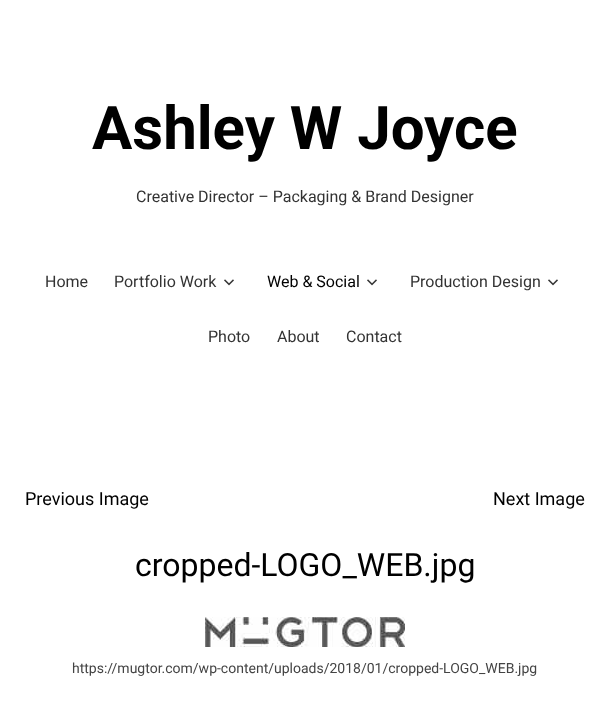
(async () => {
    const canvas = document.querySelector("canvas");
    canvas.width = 610;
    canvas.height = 701;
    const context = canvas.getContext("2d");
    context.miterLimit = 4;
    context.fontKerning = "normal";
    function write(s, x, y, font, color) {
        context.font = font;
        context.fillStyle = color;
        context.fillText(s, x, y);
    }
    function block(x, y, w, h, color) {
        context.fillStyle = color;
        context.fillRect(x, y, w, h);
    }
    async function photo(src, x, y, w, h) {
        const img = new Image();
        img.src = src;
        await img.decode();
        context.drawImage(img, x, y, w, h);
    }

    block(0, 0, 610, 701, "rgb(255, 255, 255)");
    write("Ashley W Joyce", 92, 149, "bold 60px Roboto", "rgb(0, 0, 0)");
    write("Creative Director – Packaging & Brand Designer", 136, 202, "16px Roboto", "rgb(51, 51, 51)");
    write("Home", 45, 287, "16px Roboto", "rgb(51, 51, 51)");
    write("Portfolio Work", 114, 287, "16px Roboto", "rgb(51, 51, 51)");
    await photo("media/1.png", 224, 279, 10, 7);
    write("Web & Social", 267, 287, "16px Roboto", "rgb(0, 0, 0)");
    await photo("media/1.png", 367, 279, 10, 7);
    write("Production Design", 410, 287, "16px Roboto", "rgb(51, 51, 51)");
    await photo("media/1.png", 548, 279, 10, 7);
    write("Photo", 208, 342, "16px Roboto", "rgb(51, 51, 51)");
    write("About", 277, 342, "16px Roboto", "rgb(51, 51, 51)");
    write("Contact", 346, 342, "16px Roboto", "rgb(51, 51, 51)");
    write("Previous Image", 25, 505, "18px Roboto", "rgb(0, 0, 0)");
    write("Next Image", 493, 505, "18px Roboto", "rgb(0, 0, 0)");
    write("cropped-LOGO_WEB.jpg", 135, 576, "32px Roboto", "rgb(0, 0, 0)");
    await photo("media/2.png", 205, 617, 200, 30);
    write("https://mugtor.com/wp-content/uploads/2018/01/cropped-LOGO_WEB.jpg", 72, 673, "14px Roboto", "rgb(68, 68, 68)");
})();
